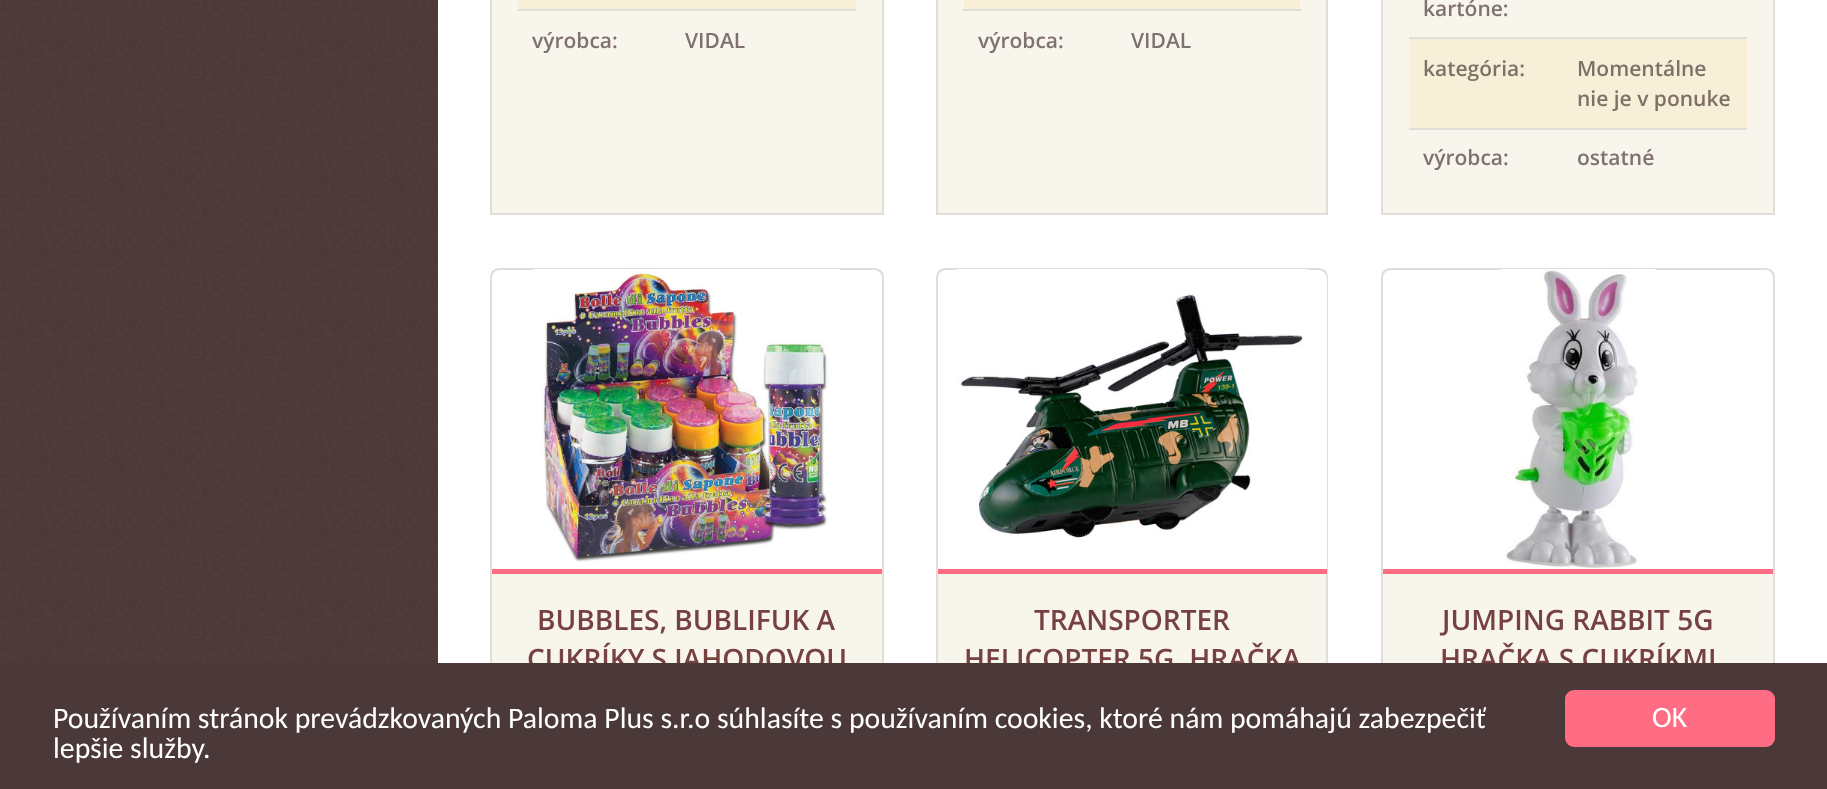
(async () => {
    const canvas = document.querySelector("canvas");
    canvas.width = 1827;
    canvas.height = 789;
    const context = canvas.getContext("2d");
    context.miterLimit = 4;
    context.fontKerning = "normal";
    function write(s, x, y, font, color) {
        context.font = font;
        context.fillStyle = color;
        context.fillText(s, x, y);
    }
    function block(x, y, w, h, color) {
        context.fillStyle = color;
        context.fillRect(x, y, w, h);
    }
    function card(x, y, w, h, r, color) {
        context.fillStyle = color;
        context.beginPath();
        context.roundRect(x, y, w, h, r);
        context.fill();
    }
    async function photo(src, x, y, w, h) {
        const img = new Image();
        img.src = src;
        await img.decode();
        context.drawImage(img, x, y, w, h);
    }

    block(0, 0, 1827, 789, "rgb(75, 57, 57)");
    await photo("media/1.png", 0, 0, 438, 663);
    block(438, 0, 1389, 663, "rgb(255, 255, 255)");
    context.fillStyle = "rgb(248, 245, 236)";
    context.beginPath();
    context.rect(491, -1, 392, 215);
    context.fill();
    context.strokeStyle = "rgb(226, 221, 217)";
    context.lineWidth = 2;
    context.stroke();
    block(518, 0, 338, 9, "rgb(247, 239, 215)");
    write("výrobca:", 532, 48, "600 21px Open Sans", "rgb(127, 113, 111)");
    block(518, 9, 338, 2, "rgb(226, 221, 217)");
    write("VIDAL", 685, 48, "600 21px Open Sans", "rgb(127, 113, 111)");
    context.fillStyle = "rgb(248, 245, 236)";
    context.beginPath();
    context.rect(937, -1, 390, 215);
    context.fill();
    context.stroke();
    block(964, 0, 336, 9, "rgb(247, 239, 215)");
    write("výrobca:", 978, 48, "600 21px Open Sans", "rgb(127, 113, 111)");
    block(963, 9, 339, 2, "rgb(226, 221, 217)");
    write("VIDAL", 1131, 48, "600 21px Open Sans", "rgb(127, 113, 111)");
    context.fillStyle = "rgb(248, 245, 236)";
    context.beginPath();
    context.rect(1382, -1, 392, 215);
    context.fill();
    context.stroke();
    write("kartóne:", 1423, 16, "600 21px Open Sans", "rgb(127, 113, 111)");
    block(1409, 39, 338, 89, "rgb(247, 239, 215)");
    write("kategória:", 1423, 76, "600 21px Open Sans", "rgb(127, 112, 104)");
    block(1409, 37, 338, 2, "rgb(226, 221, 217)");
    write("Momentálne", 1577, 76, "600 21px Open Sans", "rgb(127, 112, 104)");
    write("nie je v ponuke", 1577, 106, "600 21px Open Sans", "rgb(127, 112, 104)");
    write("výrobca:", 1423, 165, "600 21px Open Sans", "rgb(127, 113, 111)");
    block(1409, 128, 338, 2, "rgb(226, 221, 217)");
    write("ostatné", 1577, 165, "600 21px Open Sans", "rgb(127, 113, 111)");
    context.fillStyle = "rgb(248, 245, 236)";
    context.beginPath();
    context.moveTo(499, 269);
    context.lineTo(875, 269);
    context.bezierCurveTo(879.5, 269, 883, 272.5, 883, 277);
    context.lineTo(883, 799);
    context.lineTo(491, 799);
    context.lineTo(491, 277);
    context.bezierCurveTo(491, 272.5, 494.5, 269, 499, 269);
    context.closePath();
    context.fill();
    context.stroke();
    context.fillStyle = "rgb(255, 255, 255)";
    context.beginPath();
    context.roundRect(492, 270, 390, 299, [9, 9, 0, 0]);
    context.fill();
    await photo("media/2.png", 533, 269, 307, 293);
    block(492, 569, 390, 5, "rgb(255, 109, 132)");
    write("BUBBLES, BUBLIFUK A", 537, 630, "600 28px Open Sans", "rgb(117, 65, 65)");
    write("CUKRÍKY S JAHODOVOU", 527, 669, "600 28px Open Sans", "rgb(117, 65, 65)");
    context.fillStyle = "rgb(248, 245, 236)";
    context.beginPath();
    context.moveTo(945, 269);
    context.lineTo(1319, 269);
    context.bezierCurveTo(1323.5, 269, 1327, 272.5, 1327, 277);
    context.lineTo(1327, 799);
    context.lineTo(937, 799);
    context.lineTo(937, 277);
    context.bezierCurveTo(937, 272.5, 940.5, 269, 945, 269);
    context.closePath();
    context.fill();
    context.stroke();
    context.fillStyle = "rgb(255, 255, 255)";
    context.beginPath();
    context.roundRect(938, 270, 389, 299, [9, 9, 0, 0]);
    context.fill();
    await photo("media/3.png", 957, 269, 351, 269);
    block(938, 569, 389, 5, "rgb(255, 109, 132)");
    write("TRANSPORTER", 1034, 630, "600 28px Open Sans", "rgb(117, 65, 65)");
    write("HELICOPTER 5G, HRAČKA", 964, 669, "600 28px Open Sans", "rgb(117, 65, 65)");
    context.fillStyle = "rgb(248, 245, 236)";
    context.beginPath();
    context.moveTo(1390, 269);
    context.lineTo(1766, 269);
    context.bezierCurveTo(1770.5, 269, 1774, 272.5, 1774, 277);
    context.lineTo(1774, 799);
    context.lineTo(1382, 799);
    context.lineTo(1382, 277);
    context.bezierCurveTo(1382, 272.5, 1385.5, 269, 1390, 269);
    context.closePath();
    context.fill();
    context.stroke();
    context.fillStyle = "rgb(255, 255, 255)";
    context.beginPath();
    context.roundRect(1383, 270, 390, 299, [9, 9, 0, 0]);
    context.fill();
    await photo("media/4.png", 1501, 269, 155, 299);
    block(1383, 569, 390, 5, "rgb(255, 109, 132)");
    write("JUMPING RABBIT 5G", 1442, 630, "600 28px Open Sans", "rgb(117, 65, 65)");
    write("HRAČKA S CUKRÍKMI", 1440, 669, "600 28px Open Sans", "rgb(117, 65, 65)");
    block(490, 663, 1285, 126, "rgb(75, 57, 57)");
    write("Používaním stránok prevádzkovaných Paloma Plus s.r.o súhlasíte s používaním cookies, ktoré nám pomáhajú zabezpečiť", 53, 728, "29.75px Carlito", "rgb(255, 255, 255)");
    write("lepšie služby.", 53, 758, "29.75px Carlito", "rgb(255, 255, 255)");
    card(1565, 690, 210, 57, 9, "rgb(255, 109, 132)");
    write("OK", 1652, 727, "29.75px Carlito", "rgb(255, 255, 255)");
})();
